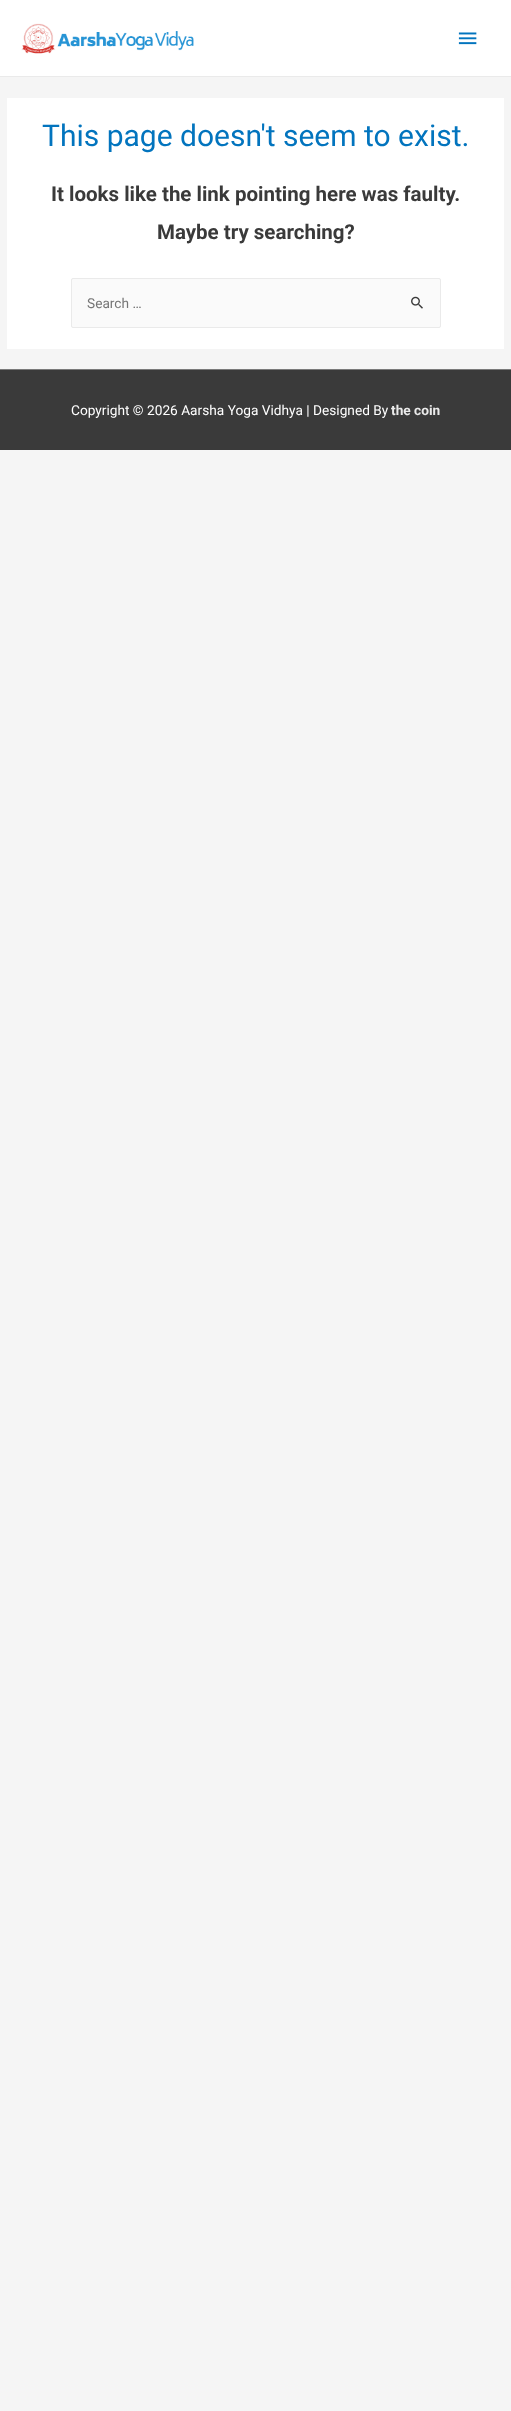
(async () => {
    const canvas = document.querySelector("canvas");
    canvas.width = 511;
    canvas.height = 2411;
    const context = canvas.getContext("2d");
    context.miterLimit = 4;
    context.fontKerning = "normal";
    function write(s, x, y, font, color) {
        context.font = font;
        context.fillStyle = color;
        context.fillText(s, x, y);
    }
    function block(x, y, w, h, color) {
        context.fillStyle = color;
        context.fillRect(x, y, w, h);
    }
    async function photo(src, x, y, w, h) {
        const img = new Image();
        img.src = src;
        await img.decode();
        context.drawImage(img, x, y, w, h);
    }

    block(0, 0, 511, 2411, "rgb(245, 245, 245)");
    block(0, 76, 511, 1, "rgb(234, 234, 234)");
    block(0, 0, 511, 76, "rgb(255, 255, 255)");
    await photo("media/1.png", 21, 23, 173, 31);
    await photo("media/2.png", 458, 32, 19, 13);
    block(7, 98, 497, 251, "rgb(255, 255, 255)");
    write("This page doesn't seem to exist.", 42, 146, "30px Roboto", "rgb(2, 116, 190)");
    write("It looks like the link pointing here was faulty.", 51, 201, "bold 20.5px Roboto", "rgb(58, 58, 58)");
    write("Maybe try searching?", 157, 239, "bold 20.5px Roboto", "rgb(58, 58, 58)");
    context.fillStyle = "rgb(250, 250, 250)";
    context.beginPath();
    context.roundRect(71.5, 278.5, 369, 49, 1.5);
    context.fill();
    context.strokeStyle = "rgb(234, 234, 234)";
    context.stroke();
    write("Search …", 87, 308, "13.7px Roboto", "rgb(117, 117, 117)");
    await photo("media/3.png", 411, 296, 12, 13);
    block(0, 369, 511, 1, "rgb(122, 122, 122)");
    block(0, 370, 511, 80, "rgb(58, 58, 58)");
    write("Copyright © 2026 Aarsha Yoga Vidhya | Designed By", 71, 415, "13.7px Roboto", "rgb(255, 255, 255)");
    write("the coin", 391, 415, "bold 13.7px Roboto", "rgb(234, 234, 234)");
})();
